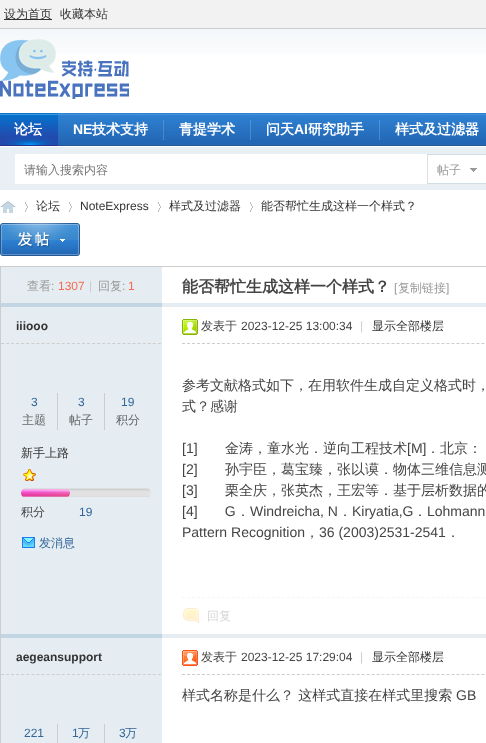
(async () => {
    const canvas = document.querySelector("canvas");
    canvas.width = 486;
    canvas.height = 743;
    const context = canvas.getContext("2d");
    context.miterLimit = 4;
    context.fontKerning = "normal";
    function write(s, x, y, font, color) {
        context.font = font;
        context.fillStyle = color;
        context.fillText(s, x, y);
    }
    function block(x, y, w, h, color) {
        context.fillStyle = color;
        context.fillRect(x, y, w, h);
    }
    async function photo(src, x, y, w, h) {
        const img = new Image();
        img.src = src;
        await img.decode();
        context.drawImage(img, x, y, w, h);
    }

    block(0, 0, 486, 743, "rgb(255, 255, 255)");
    await photo("media/1.png", 0, 29, 486, 25);
    block(0, 0, 486, 28, "rgb(242, 242, 242)");
    block(0, 28, 486, 1, "rgb(205, 205, 205)");
    block(4, 19, 48, 1, "rgb(51, 51, 51)");
    write("设为首页", 4, 18, "500 12px WenQuanYi Zen Hei", "rgb(51, 51, 51)");
    write("收藏本站", 60, 18, "500 12px WenQuanYi Zen Hei", "rgb(51, 51, 51)");
    await photo("media/2.png", 0, 39, 129, 60);
    await photo("media/3.png", 58, 113, 428, 33);
    await photo("media/4.png", 0, 113, 58, 33);
    write("论坛", 14, 134, "bold 14px WenQuanYi Zen Hei", "rgb(255, 255, 255)");
    await photo("media/5.png", 163, 120, 1, 20);
    write("NE", 73, 134, "bold 14px Liberation Sans", "rgb(255, 255, 255)");
    write("技术支持", 92, 134, "bold 14px WenQuanYi Zen Hei", "rgb(255, 255, 255)");
    await photo("media/6.png", 250, 120, 1, 20);
    write("青提学术", 179, 134, "bold 14px WenQuanYi Zen Hei", "rgb(255, 255, 255)");
    await photo("media/6.png", 379, 120, 1, 20);
    write("问天", 266, 134, "bold 14px WenQuanYi Zen Hei", "rgb(255, 255, 255)");
    write("AI", 294, 134, "bold 14px Liberation Sans", "rgb(255, 255, 255)");
    write("研究助手", 308, 134, "bold 14px WenQuanYi Zen Hei", "rgb(255, 255, 255)");
    write("样式及过滤器", 395, 134, "bold 14px WenQuanYi Zen Hei", "rgb(255, 255, 255)");
    block(0, 147, 486, 43, "rgb(232, 239, 245)");
    block(15, 154, 412, 30, "rgb(255, 255, 255)");
    write("请输入搜索内容", 24, 174, "500 12px WenQuanYi Zen Hei", "rgb(117, 117, 117)");
    await photo("media/7.png", 427, 154, 59, 30);
    write("帖子", 437, 174, "500 12px WenQuanYi Zen Hei", "rgb(153, 153, 153)");
    await photo("media/8.png", 0, 201, 16, 12);
    await photo("media/9.png", 25, 202, 3, 10);
    write("论坛", 36, 210, "500 12px WenQuanYi Zen Hei", "rgb(51, 51, 51)");
    await photo("media/9.png", 69, 202, 3, 10);
    write("NoteExpress", 80, 210, "12px Liberation Sans", "rgb(51, 51, 51)");
    await photo("media/9.png", 158, 202, 3, 10);
    write("样式及过滤器", 169, 210, "500 12px WenQuanYi Zen Hei", "rgb(51, 51, 51)");
    await photo("media/9.png", 250, 202, 3, 10);
    write("能否帮忙生成这样一个样式？", 261, 210, "500 12px WenQuanYi Zen Hei", "rgb(51, 51, 51)");
    await photo("media/10.png", 0, 223, 80, 33);
    context.strokeStyle = "rgb(205, 205, 205)";
    context.strokeRect(0.5, 266.5, 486, 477);
    block(1, 267, 161, 36, "rgb(229, 237, 242)");
    write("查看", 27, 290, "500 12px WenQuanYi Zen Hei", "rgb(153, 153, 153)");
    write(":", 51, 290, "12px Liberation Sans", "rgb(153, 153, 153)");
    write("1307", 58, 290, "12px Liberation Sans", "rgb(242, 108, 79)");
    write("|", 89, 290, "12px Liberation Sans", "rgb(204, 204, 204)");
    write("回复", 98, 290, "500 12px WenQuanYi Zen Hei", "rgb(153, 153, 153)");
    write(":", 122, 290, "12px Liberation Sans", "rgb(153, 153, 153)");
    write("1", 128, 290, "12px Liberation Sans", "rgb(242, 108, 79)");
    write("能否帮忙生成这样一个样式？", 182, 292, "bold 16px WenQuanYi Zen Hei", "rgb(68, 68, 68)");
    write("[", 394, 292, "12px Liberation Sans", "rgb(153, 153, 153)");
    write("复制链接", 398, 292, "500 12px WenQuanYi Zen Hei", "rgb(153, 153, 153)");
    write("]", 446, 292, "12px Liberation Sans", "rgb(153, 153, 153)");
    block(1, 303, 161, 4, "rgb(194, 213, 227)");
    block(162, 303, 324, 4, "rgb(229, 237, 242)");
    block(1, 307, 161, 327, "rgb(229, 237, 242)");
    context.beginPath();
    context.moveTo(1, 343.5);
    context.lineTo(161, 343.5);
    context.setLineDash([3, 2.06]);
    context.stroke();
    write("iiiooo", 16, 330, "bold 12px Liberation Sans", "rgb(51, 51, 51)");
    block(57, 393, 1, 37, "rgb(204, 204, 204)");
    write("3", 31, 406, "12px Liberation Sans", "rgb(51, 102, 153)");
    write("主题", 22, 424, "500 12px WenQuanYi Zen Hei", "rgb(102, 102, 102)");
    block(104, 393, 1, 37, "rgb(204, 204, 204)");
    write("3", 78, 406, "12px Liberation Sans", "rgb(51, 102, 153)");
    write("帖子", 69, 424, "500 12px WenQuanYi Zen Hei", "rgb(102, 102, 102)");
    write("19", 121, 406, "12px Liberation Sans", "rgb(51, 102, 153)");
    write("积分", 116, 424, "500 12px WenQuanYi Zen Hei", "rgb(102, 102, 102)");
    write("新手上路", 21, 457, "500 12px WenQuanYi Zen Hei", "rgb(51, 51, 51)");
    await photo("media/11.png", 23, 469, 13, 12);
    await photo("media/12.png", 21, 488, 130, 9);
    await photo("media/13.png", 21, 489, 49, 8);
    write("积分", 21, 516, "500 12px WenQuanYi Zen Hei", "rgb(68, 68, 68)");
    write("19", 79, 516, "12px Liberation Sans", "rgb(51, 102, 153)");
    await photo("media/14.png", 22, 537, 13, 11);
    write("发消息", 39, 547, "500 12px WenQuanYi Zen Hei", "rgb(51, 102, 153)");
    context.beginPath();
    context.moveTo(182, 343.5);
    context.lineTo(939, 343.5);
    context.setLineDash([3, 1.99]);
    context.stroke();
    await photo("media/15.png", 182, 319, 16, 16);
    write("发表于", 201, 330, "500 12px WenQuanYi Zen Hei", "rgb(68, 68, 68)");
    write("2023-12-25 13:00:34", 241, 330, "12px Liberation Sans", "rgb(68, 68, 68)");
    write("|", 360, 330, "12px Liberation Sans", "rgb(204, 204, 204)");
    write("显示全部楼层", 372, 330, "500 12px WenQuanYi Zen Hei", "rgb(51, 51, 51)");
    write("参考文献格式如下，在用软件生成自定义格式时，", 182, 390, "500 14px WenQuanYi Zen Hei", "rgb(68, 68, 68)");
    write("式？感谢", 182, 411, "500 14px WenQuanYi Zen Hei", "rgb(68, 68, 68)");
    write("[1]", 182, 453, "14px Liberation Sans", "rgb(68, 68, 68)");
    write("金涛，童水光．逆向工程技术", 225, 453, "500 14px WenQuanYi Zen Hei", "rgb(68, 68, 68)");
    write("[M]", 407, 453, "14px Liberation Sans", "rgb(68, 68, 68)");
    write("．北京：", 426, 453, "500 14px WenQuanYi Zen Hei", "rgb(68, 68, 68)");
    write("[2]", 182, 474, "14px Liberation Sans", "rgb(68, 68, 68)");
    write("孙宇臣，葛宝臻，张以谟．物体三维信息测", 225, 474, "500 14px WenQuanYi Zen Hei", "rgb(68, 68, 68)");
    write("[3]", 182, 495, "14px Liberation Sans", "rgb(68, 68, 68)");
    write("栗全庆，张英杰，王宏等．基于层析数据的", 225, 495, "500 14px WenQuanYi Zen Hei", "rgb(68, 68, 68)");
    write("[4]       G", 182, 516, "14px Liberation Sans", "rgb(68, 68, 68)");
    write("．", 236, 516, "500 14px WenQuanYi Zen Hei", "rgb(68, 68, 68)");
    write("Windreicha, N", 250, 516, "14px Liberation Sans", "rgb(68, 68, 68)");
    write("．", 338, 516, "500 14px WenQuanYi Zen Hei", "rgb(68, 68, 68)");
    write("Kiryatia,G", 352, 516, "14px Liberation Sans", "rgb(68, 68, 68)");
    write("．", 413, 516, "500 14px WenQuanYi Zen Hei", "rgb(68, 68, 68)");
    write("Lohmann", 427, 516, "14px Liberation Sans", "rgb(68, 68, 68)");
    write("Pattern Recognition", 182, 537, "14px Liberation Sans", "rgb(68, 68, 68)");
    write("，", 305, 537, "500 14px WenQuanYi Zen Hei", "rgb(68, 68, 68)");
    write("36 (2003)2531-2541", 319, 537, "14px Liberation Sans", "rgb(68, 68, 68)");
    write("．", 446, 537, "500 14px WenQuanYi Zen Hei", "rgb(68, 68, 68)");
    context.beginPath();
    context.moveTo(182, 597.5);
    context.lineTo(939, 597.5);
    context.strokeStyle = "rgb(245, 245, 245)";
    context.stroke();
    await photo("media/16.png", 183, 608, 16, 15);
    write("回复", 207, 620, "500 12px WenQuanYi Zen Hei", "rgb(214, 214, 214)");
    block(1, 634, 161, 4, "rgb(194, 213, 227)");
    block(162, 634, 324, 4, "rgb(229, 237, 242)");
    block(1, 638, 161, 105, "rgb(229, 237, 242)");
    context.beginPath();
    context.moveTo(1, 674.5);
    context.lineTo(161, 674.5);
    context.strokeStyle = "rgb(205, 205, 205)";
    context.setLineDash([3, 2.06]);
    context.stroke();
    write("aegeansupport", 16, 661, "bold 12px Liberation Sans", "rgb(51, 51, 51)");
    block(57, 724, 1, 19, "rgb(204, 204, 204)");
    write("221", 24, 737, "12px Liberation Sans", "rgb(51, 102, 153)");
    block(104, 724, 1, 19, "rgb(204, 204, 204)");
    write("1", 72, 737, "12px Liberation Sans", "rgb(51, 102, 153)");
    write("万", 78, 737, "500 12px WenQuanYi Zen Hei", "rgb(51, 102, 153)");
    write("3", 119, 737, "12px Liberation Sans", "rgb(51, 102, 153)");
    write("万", 125, 737, "500 12px WenQuanYi Zen Hei", "rgb(51, 102, 153)");
    context.beginPath();
    context.moveTo(182, 674.5);
    context.lineTo(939, 674.5);
    context.setLineDash([3, 1.99]);
    context.stroke();
    await photo("media/17.png", 182, 650, 16, 16);
    write("发表于", 201, 661, "500 12px WenQuanYi Zen Hei", "rgb(68, 68, 68)");
    write("2023-12-25 17:29:04", 241, 661, "12px Liberation Sans", "rgb(68, 68, 68)");
    write("|", 360, 661, "12px Liberation Sans", "rgb(204, 204, 204)");
    write("显示全部楼层", 372, 661, "500 12px WenQuanYi Zen Hei", "rgb(51, 51, 51)");
    write("样式名称是什么？ 这样式直接在样式里搜索", 182, 700, "500 14px WenQuanYi Zen Hei", "rgb(68, 68, 68)");
    write("GB", 456, 700, "14px Liberation Sans", "rgb(68, 68, 68)");
})();
